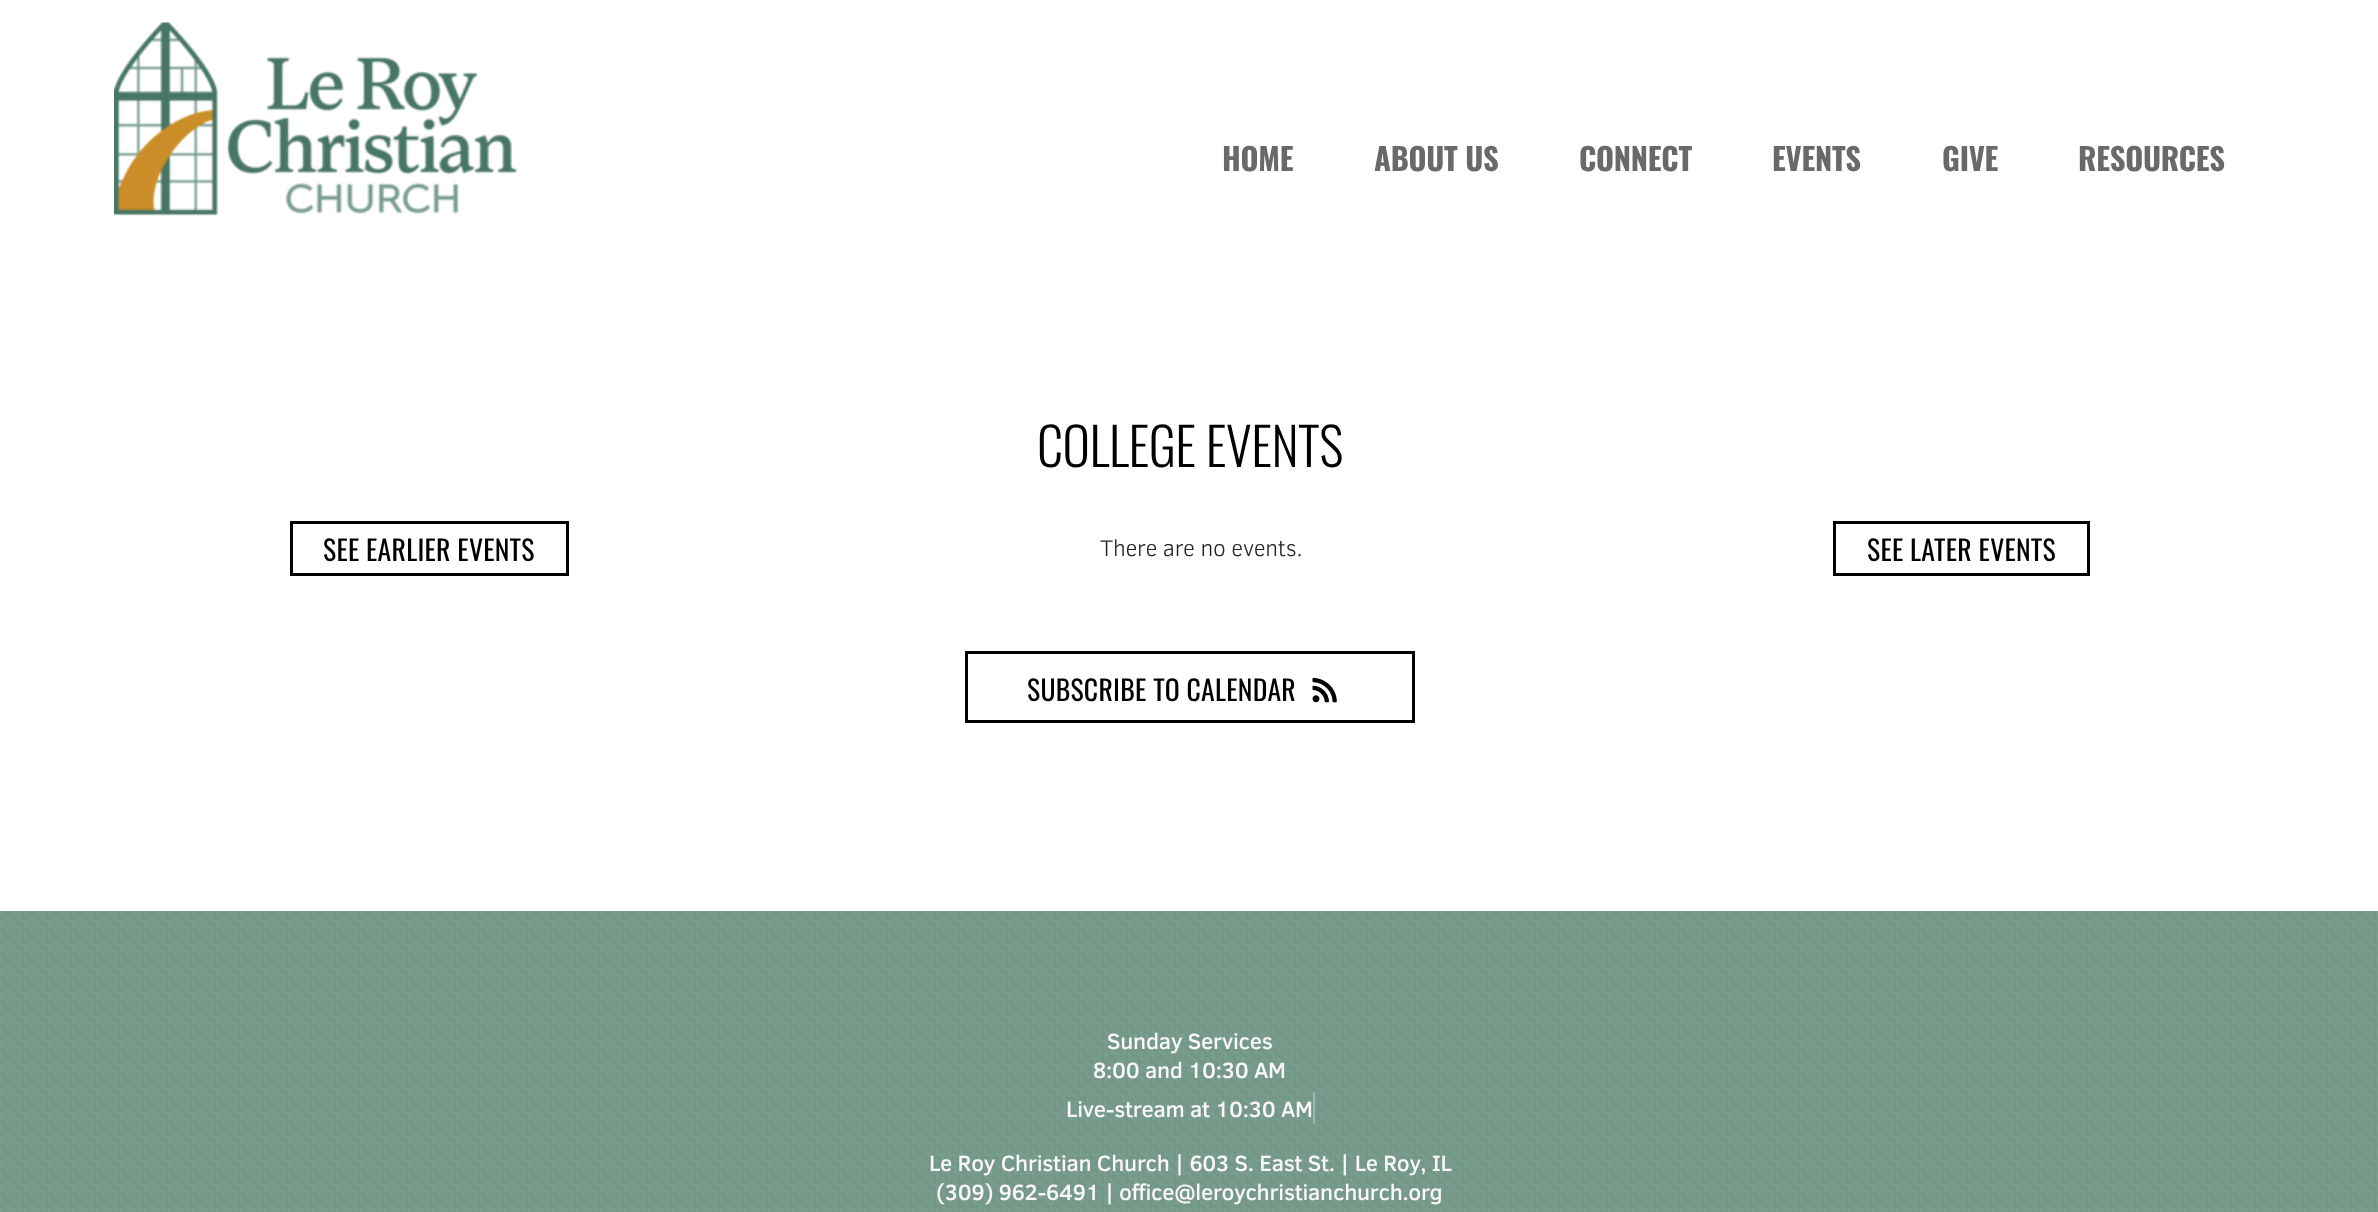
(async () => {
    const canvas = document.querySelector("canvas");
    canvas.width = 2378;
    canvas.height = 1212;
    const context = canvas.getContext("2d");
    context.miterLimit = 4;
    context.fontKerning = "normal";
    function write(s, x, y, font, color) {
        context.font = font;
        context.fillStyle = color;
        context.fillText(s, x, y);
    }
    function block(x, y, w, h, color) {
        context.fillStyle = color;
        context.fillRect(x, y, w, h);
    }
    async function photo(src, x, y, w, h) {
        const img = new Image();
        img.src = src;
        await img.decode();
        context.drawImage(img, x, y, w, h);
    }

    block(0, 0, 2378, 1212, "rgb(255, 255, 255)");
    await photo("media/1.png", 114, 22, 404, 194);
    context.letterSpacing = "-0.25px";
    write("HOME", 1222, 171, "bold 30.75px Oswald", "rgb(105, 105, 105)");
    write("ABOUT US", 1374, 171, "bold 30.75px Oswald", "rgb(105, 105, 105)");
    write("CONNECT", 1579, 171, "bold 30.75px Oswald", "rgb(105, 105, 105)");
    write("EVENTS", 1772, 171, "bold 30.75px Oswald", "rgb(105, 105, 105)");
    write("GIVE", 1942, 171, "bold 30.75px Oswald", "rgb(105, 105, 105)");
    write("RESOURCES", 2078, 171, "bold 30.75px Oswald", "rgb(105, 105, 105)");
    context.letterSpacing = "-0.5px";
    write("COLLEGE EVENTS", 1037, 467, "300 52.25px Oswald", "rgb(0, 0, 0)");
    context.strokeStyle = "rgb(0, 0, 0)";
    context.lineWidth = 3;
    context.strokeRect(291.5, 522.5, 276, 52);
    context.letterSpacing = "0.25px";
    write("SEE EARLIER EVENTS", 323, 561, "27.75px Oswald", "rgb(0, 0, 0)");
    context.letterSpacing = "-0.23px";
    write("There are no events.", 1100, 556, "300 23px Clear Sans", "rgb(38, 38, 38)");
    context.strokeRect(1834.5, 522.5, 254, 52);
    context.letterSpacing = "0.25px";
    write("SEE LATER EVENTS", 1867, 561, "27.75px Oswald", "rgb(0, 0, 0)");
    context.strokeRect(966.5, 652.5, 447, 69);
    write("SUBSCRIBE TO CALENDAR", 1027, 701, "27.75px Oswald", "rgb(0, 0, 0)");
    await photo("media/2.png", 1312, 677, 25, 26);
    block(0, 911, 2378, 301, "rgb(120, 156, 141)");
    await photo("media/3.png", 0, 911, 2378, 301);
    context.letterSpacing = "-0.23px";
    write("Sunday Services", 1107, 1049, "500 22.5px Clear Sans", "rgb(250, 247, 248)");
    write("8:00 and 10:30 AM", 1093, 1078, "500 22.5px Clear Sans", "rgb(250, 247, 248)");
    write("Live-stream at 10:30 AM", 1066, 1117, "500 22.5px Clear Sans", "rgb(250, 247, 248)");
    block(1313, 1092, 2, 32, "rgb(151, 184, 179)");
    write("Le Roy Christian Church | 603 S. East St. | Le Roy, IL", 929, 1171, "500 22.5px Clear Sans", "rgb(250, 247, 248)");
    write("(309) 962-6491 |", 936, 1200, "500 22.5px Clear Sans", "rgb(250, 247, 248)");
    write("office@leroychristianchurch.org", 1119, 1200, "500 22.5px Clear Sans", "rgb(250, 247, 248)");
})();
